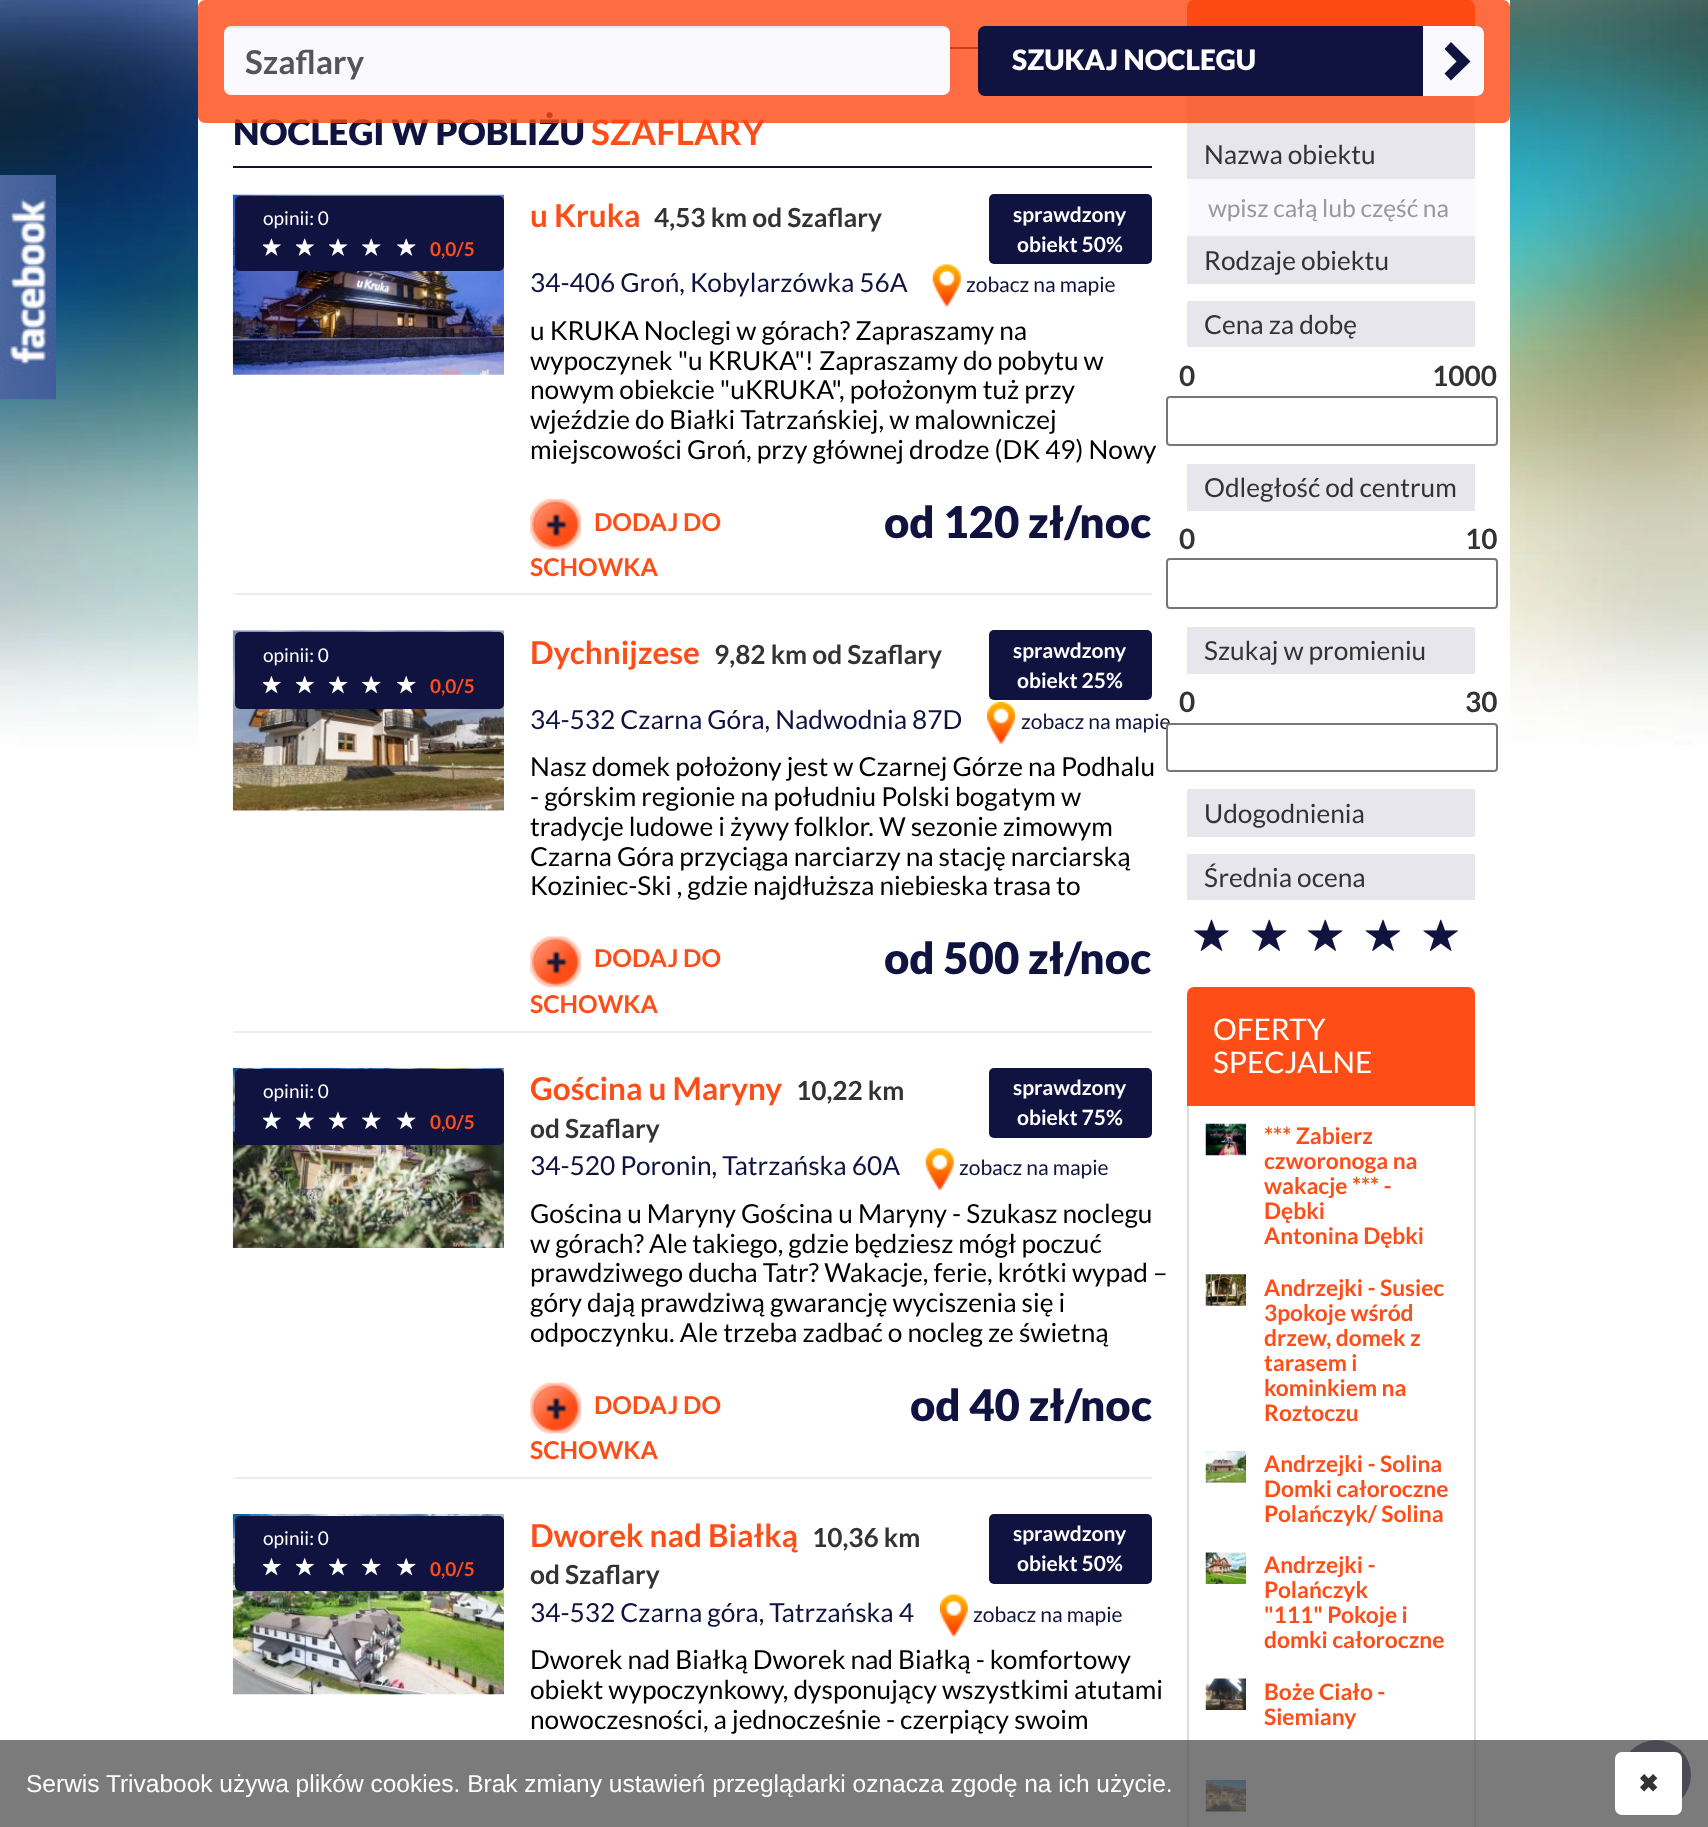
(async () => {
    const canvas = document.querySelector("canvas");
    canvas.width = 1708;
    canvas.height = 1827;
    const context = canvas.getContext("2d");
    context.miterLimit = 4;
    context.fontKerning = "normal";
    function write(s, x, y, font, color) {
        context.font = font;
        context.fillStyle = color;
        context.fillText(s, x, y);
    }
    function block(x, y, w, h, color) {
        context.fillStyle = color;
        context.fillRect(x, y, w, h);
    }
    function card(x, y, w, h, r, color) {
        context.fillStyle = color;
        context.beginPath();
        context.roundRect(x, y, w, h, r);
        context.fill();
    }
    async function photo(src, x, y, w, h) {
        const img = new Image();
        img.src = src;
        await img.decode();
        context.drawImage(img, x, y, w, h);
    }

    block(0, 0, 1708, 1827, "rgb(255, 255, 255)");
    await photo("media/2.png", 0, 0, 1708, 745);
    await photo("media/1.png", 0, 175, 56, 225);
    block(198, 0, 1312, 745, "rgb(255, 255, 255)");
    block(950, 47, 28, 2, "rgb(16, 19, 64)");
    write("NOCLEGI W POBLIŻU", 233, 145, "900 35px Lato", "rgb(16, 19, 64)");
    write("SZAFLARY", 591, 145, "bold 35px Lato", "rgb(254, 77, 23)");
    context.beginPath();
    context.roundRect(1187, 0, 288, 84, [7, 7, 0, 0]);
    context.fill();
    block(1187, 96, 288, 81, "rgb(231, 230, 236)");
    card(198, 0, 1312, 123, 7, "rgba(254, 73, 18, 0.8)");
    card(224, 26, 726, 69, 7, "rgb(249, 249, 254)");
    context.fillStyle = "rgba(0, 0, 0, 0.07)";
    context.beginPath();
    context.moveTo(231, 28);
    context.lineTo(943, 28);
    context.bezierCurveTo(947, 28, 950, 31, 950, 35);
    context.bezierCurveTo(950, 31, 948, 26, 943, 26);
    context.lineTo(231, 26);
    context.bezierCurveTo(226, 26, 224, 31, 224, 35);
    context.bezierCurveTo(224, 31, 227, 28, 231, 28);
    context.closePath();
    context.fill();
    write("Szaflary", 245, 74, "bold 33px Lato", "rgb(85, 85, 85)");
    card(978, 26, 506, 70, 7, "rgb(16, 19, 64)");
    write("SZUKAJ NOCLEGU", 1012, 70, "900 28px Lato", "rgb(255, 255, 255)");
    context.fillStyle = "rgb(249, 249, 254)";
    context.beginPath();
    context.roundRect(1423, 26, 61, 70, [0, 7, 7, 0]);
    context.fill();
    context.fillStyle = "rgb(16, 19, 64)";
    context.beginPath();
    context.moveTo(1470.5, 61.5);
    context.lineTo(1451, 80.5);
    context.lineTo(1444.5, 73.5);
    context.lineTo(1456.5, 61.5);
    context.lineTo(1444.5, 49);
    context.lineTo(1451, 42);
    context.closePath();
    context.fill();
    block(233, 166, 919, 2, "rgb(16, 19, 64)");
    await photo("media/3.png", 232, 194, 272, 181);
    card(235, 196, 269, 75, 5, "rgb(16, 19, 64)");
    write("opinii: 0", 263, 225, "19px Lato", "rgb(255, 255, 255)");
    await photo("media/4.png", 263, 238, 18, 18);
    await photo("media/5.png", 296, 238, 19, 18);
    await photo("media/6.png", 329, 238, 19, 18);
    await photo("media/7.png", 362, 238, 19, 18);
    await photo("media/7.png", 397, 238, 19, 18);
    write("0,0/5", 430, 256, "bold 19px Lato", "rgb(254, 77, 23)");
    write("u Kruka", 530, 227, "bold 31.5px Lato", "rgb(254, 77, 23)");
    write("4,53 km od Szaflary", 654, 227, "bold 26.25px Lato", "rgb(51, 51, 51)");
    card(989, 194, 163, 70, 5, "rgb(16, 19, 64)");
    write("sprawdzony", 1013, 222, "bold 21px Lato", "rgb(255, 255, 255)");
    write("obiekt 50%", 1017, 252, "bold 21px Lato", "rgb(255, 255, 255)");
    write("34-406 Groń, Kobylarzówka 56A", 530, 292, "26.25px Lato", "rgb(16, 19, 64)");
    await photo("media/8.png", 932, 264, 29, 43);
    write("zobacz na mapie", 966, 292, "21px Lato", "rgb(16, 19, 64)");
    write("u KRUKA Noclegi w górach? Zapraszamy na", 530, 340, "26.25px Lato", "rgb(0, 0, 0)");
    write("wypoczynek \"u KRUKA\"! Zapraszamy do pobytu w", 530, 370, "26.25px Lato", "rgb(0, 0, 0)");
    write("nowym obiekcie \"uKRUKA\", położonym tuż przy", 530, 399, "26.25px Lato", "rgb(0, 0, 0)");
    write("wjeździe do Białki Tatrzańskiej, w malowniczej", 530, 429, "26.25px Lato", "rgb(0, 0, 0)");
    write("miejscowości Groń, przy głównej drodze (DK 49) Nowy", 530, 459, "26.25px Lato", "rgb(0, 0, 0)");
    await photo("media/9.png", 530, 499, 51, 51);
    write("DODAJ DO", 594, 531, "bold 24.5px Lato", "rgb(254, 77, 23)");
    write("SCHOWKA", 530, 576, "bold 24.5px Lato", "rgb(254, 77, 23)");
    write("od 120 zł/noc", 884, 538, "900 43.75px Lato", "rgb(16, 19, 64)");
    block(233, 593, 919, 2, "rgb(238, 238, 238)");
    await photo("media/10.png", 232, 630, 272, 181);
    card(235, 632, 269, 77, 5, "rgb(16, 19, 64)");
    write("opinii: 0", 263, 662, "19px Lato", "rgb(255, 255, 255)");
    await photo("media/11.png", 263, 676, 18, 18);
    await photo("media/12.png", 296, 676, 19, 18);
    await photo("media/13.png", 329, 676, 19, 18);
    await photo("media/14.png", 362, 676, 19, 18);
    await photo("media/14.png", 397, 676, 19, 18);
    write("0,0/5", 430, 693, "bold 19px Lato", "rgb(254, 77, 23)");
    write("Dychnijzese", 530, 664, "bold 31.5px Lato", "rgb(254, 77, 23)");
    write("9,82 km od Szaflary", 714, 664, "bold 26.25px Lato", "rgb(51, 51, 51)");
    card(989, 630, 163, 70, 5, "rgb(16, 19, 64)");
    write("sprawdzony", 1013, 658, "bold 21px Lato", "rgb(255, 255, 255)");
    write("obiekt 25%", 1017, 688, "bold 21px Lato", "rgb(255, 255, 255)");
    write("34-532 Czarna Góra, Nadwodnia 87D", 530, 729, "26.25px Lato", "rgb(16, 19, 64)");
    await photo("media/15.png", 987, 702, 28, 42);
    write("zobacz na mapie", 1021, 729, "21px Lato", "rgb(16, 19, 64)");
    write("Nasz domek położony jest w Czarnej Górze na Podhalu", 530, 776, "26.25px Lato", "rgb(0, 0, 0)");
    write("- górskim regionie na południu Polski bogatym w", 530, 806, "26.25px Lato", "rgb(0, 0, 0)");
    write("tradycje ludowe i żywy folklor. W sezonie zimowym", 530, 836, "26.25px Lato", "rgb(0, 0, 0)");
    write("Czarna Góra przyciąga narciarzy na stację narciarską", 530, 866, "26.25px Lato", "rgb(0, 0, 0)");
    write("Koziniec-Ski , gdzie najdłuższa niebieska trasa to", 530, 895, "26.25px Lato", "rgb(0, 0, 0)");
    await photo("media/16.png", 530, 936, 51, 52);
    write("DODAJ DO", 594, 967, "bold 24.5px Lato", "rgb(254, 77, 23)");
    write("SCHOWKA", 530, 1013, "bold 24.5px Lato", "rgb(254, 77, 23)");
    write("od 500 zł/noc", 884, 974, "900 43.75px Lato", "rgb(16, 19, 64)");
    block(233, 1031, 919, 2, "rgb(238, 238, 238)");
    await photo("media/17.png", 232, 1067, 272, 181);
    card(235, 1069, 269, 76, 5, "rgb(16, 19, 64)");
    write("opinii: 0", 263, 1098, "19px Lato", "rgb(255, 255, 255)");
    await photo("media/18.png", 263, 1111, 18, 18);
    await photo("media/19.png", 296, 1111, 19, 18);
    await photo("media/20.png", 329, 1111, 19, 18);
    await photo("media/21.png", 362, 1111, 19, 18);
    await photo("media/21.png", 397, 1111, 19, 18);
    write("0,0/5", 430, 1129, "bold 19px Lato", "rgb(254, 77, 23)");
    write("Gościna u Maryny", 530, 1100, "bold 31.5px Lato", "rgb(254, 77, 23)");
    write("10,22 km", 796, 1100, "bold 26.25px Lato", "rgb(51, 51, 51)");
    write("od Szaflary", 530, 1138, "bold 26.25px Lato", "rgb(51, 51, 51)");
    card(989, 1068, 163, 70, 5, "rgb(16, 19, 64)");
    write("sprawdzony", 1013, 1095, "bold 21px Lato", "rgb(255, 255, 255)");
    write("obiekt 75%", 1017, 1125, "bold 21px Lato", "rgb(255, 255, 255)");
    write("34-520 Poronin, Tatrzańska 60A", 530, 1175, "26.25px Lato", "rgb(16, 19, 64)");
    await photo("media/22.png", 925, 1148, 29, 43);
    write("zobacz na mapie", 959, 1175, "21px Lato", "rgb(16, 19, 64)");
    write("Gościna u Maryny Gościna u Maryny - Szukasz noclegu", 530, 1223, "26.25px Lato", "rgb(0, 0, 0)");
    write("w górach? Ale takiego, gdzie będziesz mógł poczuć", 530, 1253, "26.25px Lato", "rgb(0, 0, 0)");
    write("prawdziwego ducha Tatr? Wakacje, ferie, krótki wypad –", 530, 1282, "26.25px Lato", "rgb(0, 0, 0)");
    write("góry dają prawdziwą gwarancję wyciszenia się i", 530, 1312, "26.25px Lato", "rgb(0, 0, 0)");
    write("odpoczynku. Ale trzeba zadbać o nocleg ze świetną", 530, 1342, "26.25px Lato", "rgb(0, 0, 0)");
    await photo("media/23.png", 530, 1382, 51, 52);
    write("DODAJ DO", 594, 1414, "bold 24.5px Lato", "rgb(254, 77, 23)");
    write("SCHOWKA", 530, 1459, "bold 24.5px Lato", "rgb(254, 77, 23)");
    write("od 40 zł/noc", 910, 1421, "900 43.75px Lato", "rgb(16, 19, 64)");
    block(233, 1477, 919, 2, "rgb(238, 238, 238)");
    await photo("media/24.png", 232, 1514, 272, 181);
    card(235, 1516, 269, 75, 5, "rgb(16, 19, 64)");
    write("opinii: 0", 263, 1545, "19px Lato", "rgb(255, 255, 255)");
    await photo("media/11.png", 263, 1558, 18, 18);
    await photo("media/12.png", 296, 1558, 19, 18);
    await photo("media/13.png", 329, 1558, 19, 18);
    await photo("media/14.png", 362, 1558, 19, 18);
    await photo("media/14.png", 397, 1558, 19, 18);
    write("0,0/5", 430, 1576, "bold 19px Lato", "rgb(254, 77, 23)");
    write("Dworek nad Białką", 530, 1547, "bold 31.5px Lato", "rgb(254, 77, 23)");
    write("10,36 km", 812, 1547, "bold 26.25px Lato", "rgb(51, 51, 51)");
    write("od Szaflary", 530, 1584, "bold 26.25px Lato", "rgb(51, 51, 51)");
    card(989, 1514, 163, 70, 5, "rgb(16, 19, 64)");
    write("sprawdzony", 1013, 1541, "bold 21px Lato", "rgb(255, 255, 255)");
    write("obiekt 50%", 1017, 1571, "bold 21px Lato", "rgb(255, 255, 255)");
    write("34-532 Czarna góra, Tatrzańska 4", 530, 1622, "26.25px Lato", "rgb(16, 19, 64)");
    await photo("media/8.png", 939, 1594, 29, 43);
    write("zobacz na mapie", 973, 1622, "21px Lato", "rgb(16, 19, 64)");
    write("Dworek nad Białką Dworek nad Białką - komfortowy", 530, 1669, "26.25px Lato", "rgb(0, 0, 0)");
    write("obiekt wypoczynkowy, dysponujący wszystkimi atutami", 530, 1699, "26.25px Lato", "rgb(0, 0, 0)");
    write("nowoczesności, a jednocześnie - czerpiący swoim", 530, 1729, "26.25px Lato", "rgb(0, 0, 0)");
    write("Nazwa obiektu", 1204, 164, "26.25px Lato", "rgb(51, 51, 51)");
    block(1187, 179, 288, 57, "rgb(249, 249, 254)");
    block(1187, 177, 288, 2, "rgb(230, 230, 235)");
    write("wpisz całą lub część na", 1208, 217, "24.5px Lato", "rgb(153, 153, 153)");
    block(1187, 236, 288, 48, "rgb(231, 230, 236)");
    write("Rodzaje obiektu", 1204, 270, "26.25px Lato", "rgb(51, 51, 51)");
    block(1187, 301, 288, 46, "rgb(231, 230, 236)");
    write("Cena za dobę", 1204, 334, "26.25px Lato", "rgb(51, 51, 51)");
    write("0", 1179, 386, "bold 28px Lato", "rgb(51, 51, 51)");
    write("1000", 1432, 386, "bold 28px Lato", "rgb(51, 51, 51)");
    context.beginPath();
    context.roundRect(1167, 397, 330, 48, 3);
    context.strokeStyle = "rgb(118, 118, 118)";
    context.lineWidth = 2;
    context.stroke();
    block(1187, 464, 288, 47, "rgb(231, 230, 236)");
    write("Odległość od centrum", 1204, 497, "26.25px Lato", "rgb(51, 51, 51)");
    write("0", 1179, 549, "bold 28px Lato", "rgb(51, 51, 51)");
    write("10", 1465, 549, "bold 28px Lato", "rgb(51, 51, 51)");
    context.beginPath();
    context.roundRect(1167, 559, 330, 49, 3);
    context.stroke();
    block(1187, 627, 288, 47, "rgb(231, 230, 236)");
    write("Szukaj w promieniu", 1204, 660, "26.25px Lato", "rgb(51, 51, 51)");
    write("0", 1179, 712, "bold 28px Lato", "rgb(51, 51, 51)");
    write("30", 1465, 712, "bold 28px Lato", "rgb(51, 51, 51)");
    context.fillStyle = "rgb(255, 255, 255)";
    context.beginPath();
    context.roundRect(1167, 724, 330, 47, 3);
    context.fill();
    context.stroke();
    block(1187, 789, 288, 48, "rgb(231, 230, 236)");
    write("Udogodnienia", 1204, 823, "26.25px Lato", "rgb(51, 51, 51)");
    block(1187, 854, 288, 46, "rgb(231, 230, 236)");
    write("Średnia ocena", 1204, 887, "26.25px Lato", "rgb(51, 51, 51)");
    await photo("media/25.png", 1194, 919, 35, 32);
    await photo("media/26.png", 1251, 919, 36, 32);
    await photo("media/26.png", 1307, 919, 36, 32);
    await photo("media/27.png", 1365, 919, 36, 32);
    await photo("media/28.png", 1423, 919, 35, 32);
    context.fillStyle = "rgb(254, 77, 23)";
    context.beginPath();
    context.roundRect(1187, 987, 288, 119, [7, 7, 0, 0]);
    context.fill();
    write("OFERTY", 1213, 1040, "29.75px Lato", "rgb(255, 255, 255)");
    write("SPECJALNE", 1213, 1073, "29.75px Lato", "rgb(255, 255, 255)");
    block(1474, 1106, 2, 721, "rgb(221, 221, 221)");
    block(1187, 1106, 2, 721, "rgb(221, 221, 221)");
    await photo("media/29.png", 1205, 1123, 41, 33);
    write("*** Zabierz", 1264, 1144, "bold 22.75px Lato", "rgb(254, 77, 23)");
    write("czworonoga na", 1264, 1169, "bold 22.75px Lato", "rgb(254, 77, 23)");
    write("wakacje *** -", 1264, 1194, "bold 22.75px Lato", "rgb(254, 77, 23)");
    write("Dębki", 1264, 1219, "bold 22.75px Lato", "rgb(254, 77, 23)");
    write("Antonina Dębki", 1264, 1244, "bold 22.75px Lato", "rgb(254, 77, 23)");
    await photo("media/30.png", 1205, 1274, 41, 32);
    write("Andrzejki - Susiec", 1264, 1296, "bold 22.75px Lato", "rgb(254, 77, 23)");
    write("3pokoje wśród", 1264, 1321, "bold 22.75px Lato", "rgb(254, 77, 23)");
    write("drzew, domek z", 1264, 1346, "bold 22.75px Lato", "rgb(254, 77, 23)");
    write("tarasem i", 1264, 1371, "bold 22.75px Lato", "rgb(254, 77, 23)");
    write("kominkiem na", 1264, 1396, "bold 22.75px Lato", "rgb(254, 77, 23)");
    write("Roztoczu", 1264, 1421, "bold 22.75px Lato", "rgb(254, 77, 23)");
    await photo("media/31.png", 1205, 1451, 41, 32);
    write("Andrzejki - Solina", 1264, 1472, "bold 22.75px Lato", "rgb(254, 77, 23)");
    write("Domki całoroczne", 1264, 1497, "bold 22.75px Lato", "rgb(254, 77, 23)");
    write("Polańczyk/ Solina", 1264, 1522, "bold 22.75px Lato", "rgb(254, 77, 23)");
    await photo("media/32.png", 1205, 1552, 41, 32);
    write("Andrzejki -", 1264, 1573, "bold 22.75px Lato", "rgb(254, 77, 23)");
    write("Polańczyk", 1264, 1598, "bold 22.75px Lato", "rgb(254, 77, 23)");
    write("\"111\" Pokoje i", 1264, 1623, "bold 22.75px Lato", "rgb(254, 77, 23)");
    write("domki całoroczne", 1264, 1648, "bold 22.75px Lato", "rgb(254, 77, 23)");
    await photo("media/33.png", 1205, 1678, 41, 32);
    write("Boże Ciało -", 1264, 1700, "bold 22.75px Lato", "rgb(254, 77, 23)");
    write("Siemiany", 1264, 1725, "bold 22.75px Lato", "rgb(254, 77, 23)");
    await photo("media/34.png", 1205, 1780, 41, 32);
    context.fillStyle = "rgb(16, 19, 64)";
    context.beginPath();
    context.arc(1656, 1775, 35, 0, Math.PI * 2);
    context.fill();
    block(0, 1740, 1708, 87, "rgba(90, 90, 90, 0.8)");
    write("Serwis Trivabook używa plików cookies. Brak zmiany ustawień przeglądarki oznacza zgodę na ich użycie.", 26, 1792, "24.5px Liberation Sans", "rgb(255, 255, 255)");
    card(1615, 1752, 67, 63, 7, "rgb(255, 255, 255)");
    write("✖", 1638, 1792, "bold 24.5px DejaVu Sans", "rgb(51, 51, 51)");
})();
